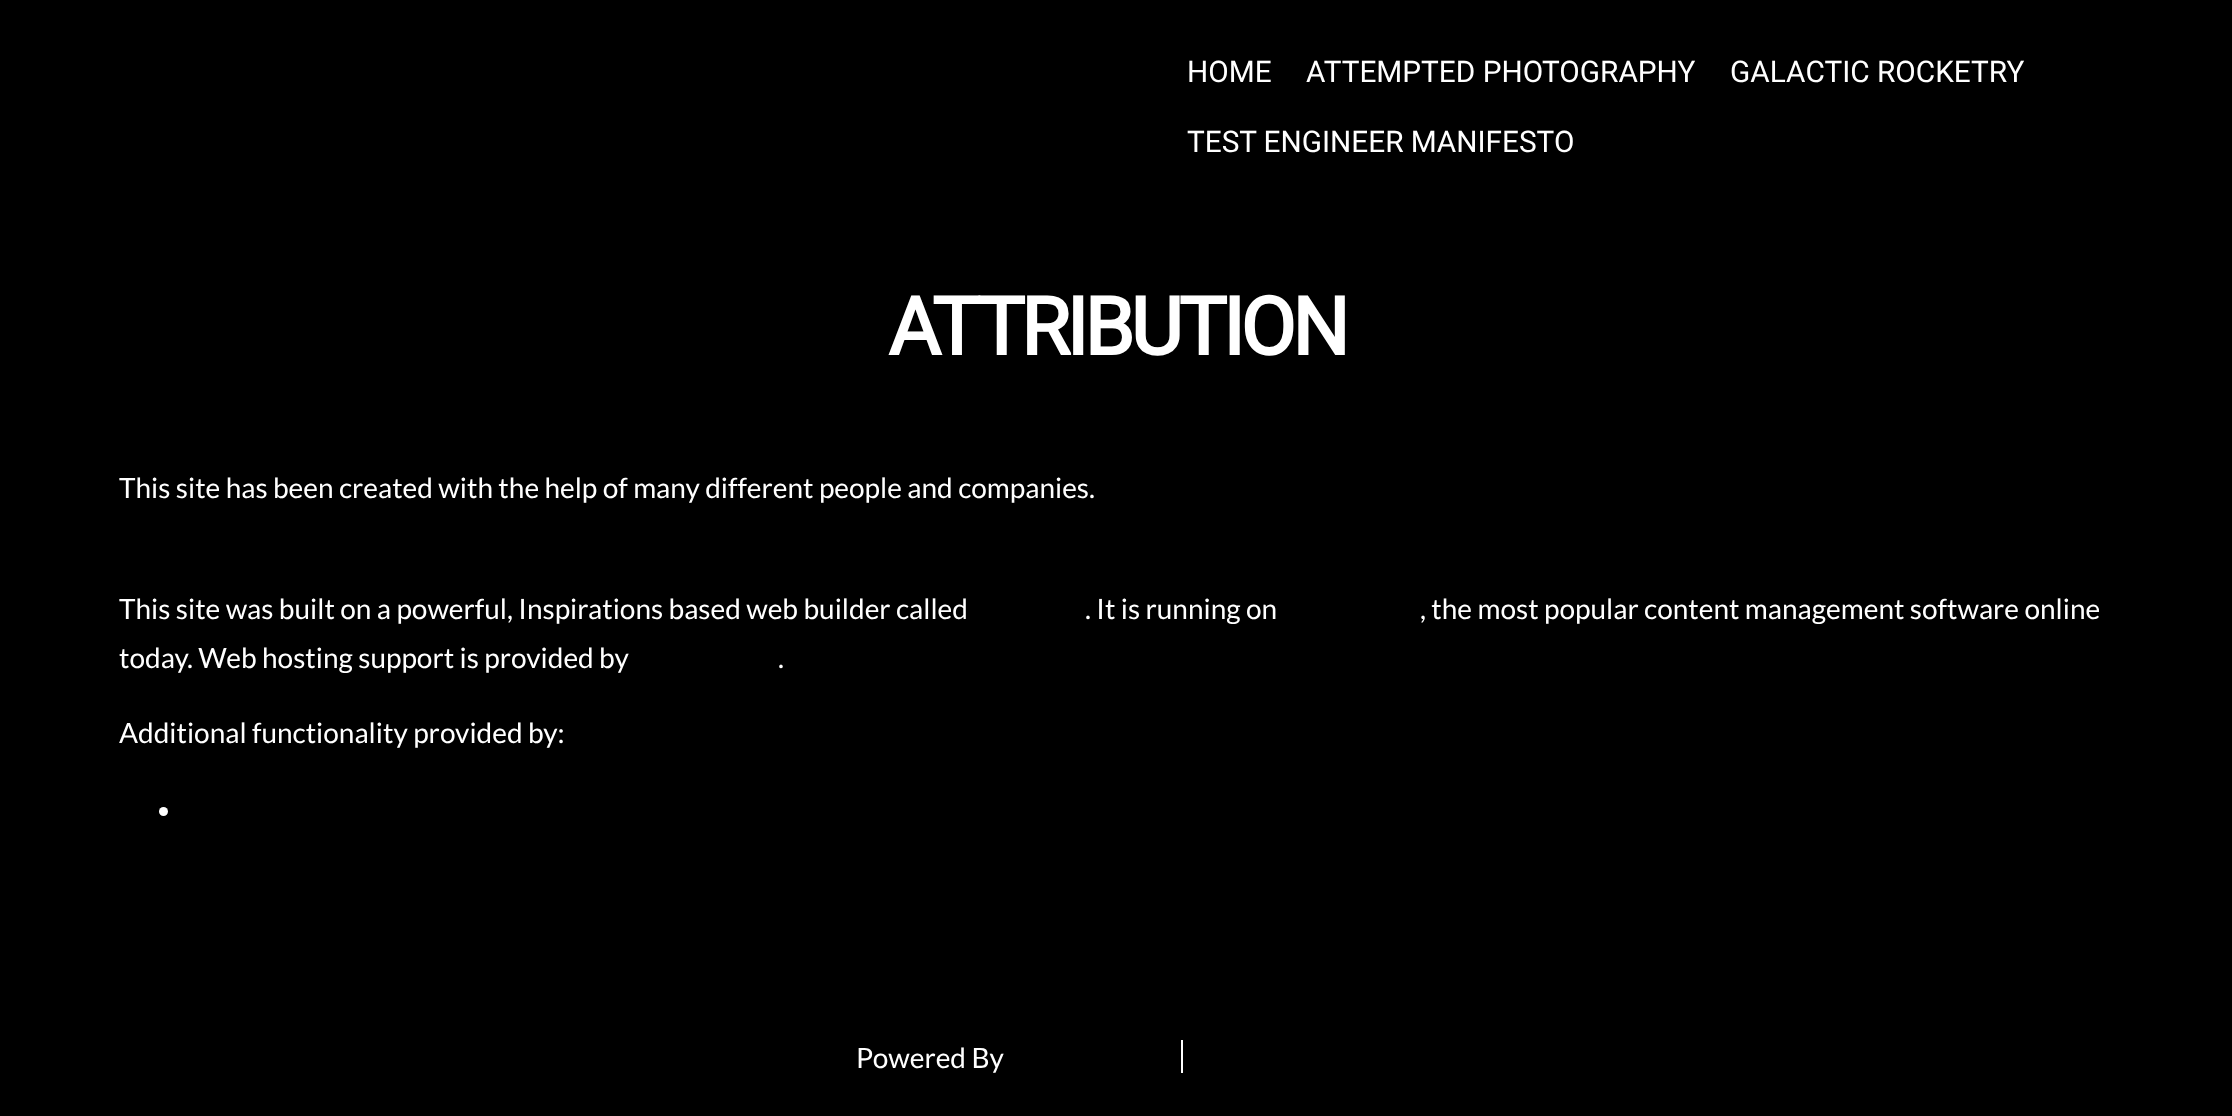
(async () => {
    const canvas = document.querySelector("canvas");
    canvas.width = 2232;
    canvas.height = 1116;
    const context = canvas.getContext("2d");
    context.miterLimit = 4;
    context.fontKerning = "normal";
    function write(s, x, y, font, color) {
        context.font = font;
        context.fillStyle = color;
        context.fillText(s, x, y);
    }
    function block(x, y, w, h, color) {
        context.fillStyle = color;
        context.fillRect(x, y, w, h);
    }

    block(0, 0, 2232, 1116, "rgb(0, 0, 0)");
    write("HOME", 1187, 82, "29.75px Heebo", "rgb(255, 255, 255)");
    write("ATTEMPTED PHOTOGRAPHY", 1306, 82, "29.75px Heebo", "rgb(255, 255, 255)");
    write("GALACTIC ROCKETRY", 1730, 82, "29.75px Heebo", "rgb(255, 255, 255)");
    write("TEST ENGINEER MANIFESTO", 1187, 152, "29.75px Heebo", "rgb(255, 255, 255)");
    context.letterSpacing = "-4px";
    write("ATTRIBUTION", 888, 355, "bold 80.5px Heebo", "rgb(255, 255, 255)");
    context.letterSpacing = "0px";
    write("This site has been created with the help of many different people and companies.", 119, 498, "28px Lato", "rgb(255, 255, 255)");
    write("This site was built on a powerful, Inspirations based web builder called", 119, 619, "28px Lato", "rgb(255, 255, 255)");
    write(". It is running on", 1085, 619, "28px Lato", "rgb(255, 255, 255)");
    write(", the most popular content management software online", 1420, 619, "28px Lato", "rgb(255, 255, 255)");
    write("today. Web hosting support is provided by", 119, 668, "28px Lato", "rgb(255, 255, 255)");
    write(".", 778, 668, "28px Lato", "rgb(255, 255, 255)");
    write("Additional functionality provided by:", 119, 743, "28px Lato", "rgb(255, 255, 255)");
    context.beginPath();
    context.arc(163.5, 811.5, 4.5, 0, Math.PI * 2);
    context.fill();
    write("Powered By", 856, 1068, "28px Lato", "rgb(255, 255, 255)");
    block(1181, 1040, 2, 33, "rgb(255, 255, 255)");
})();
